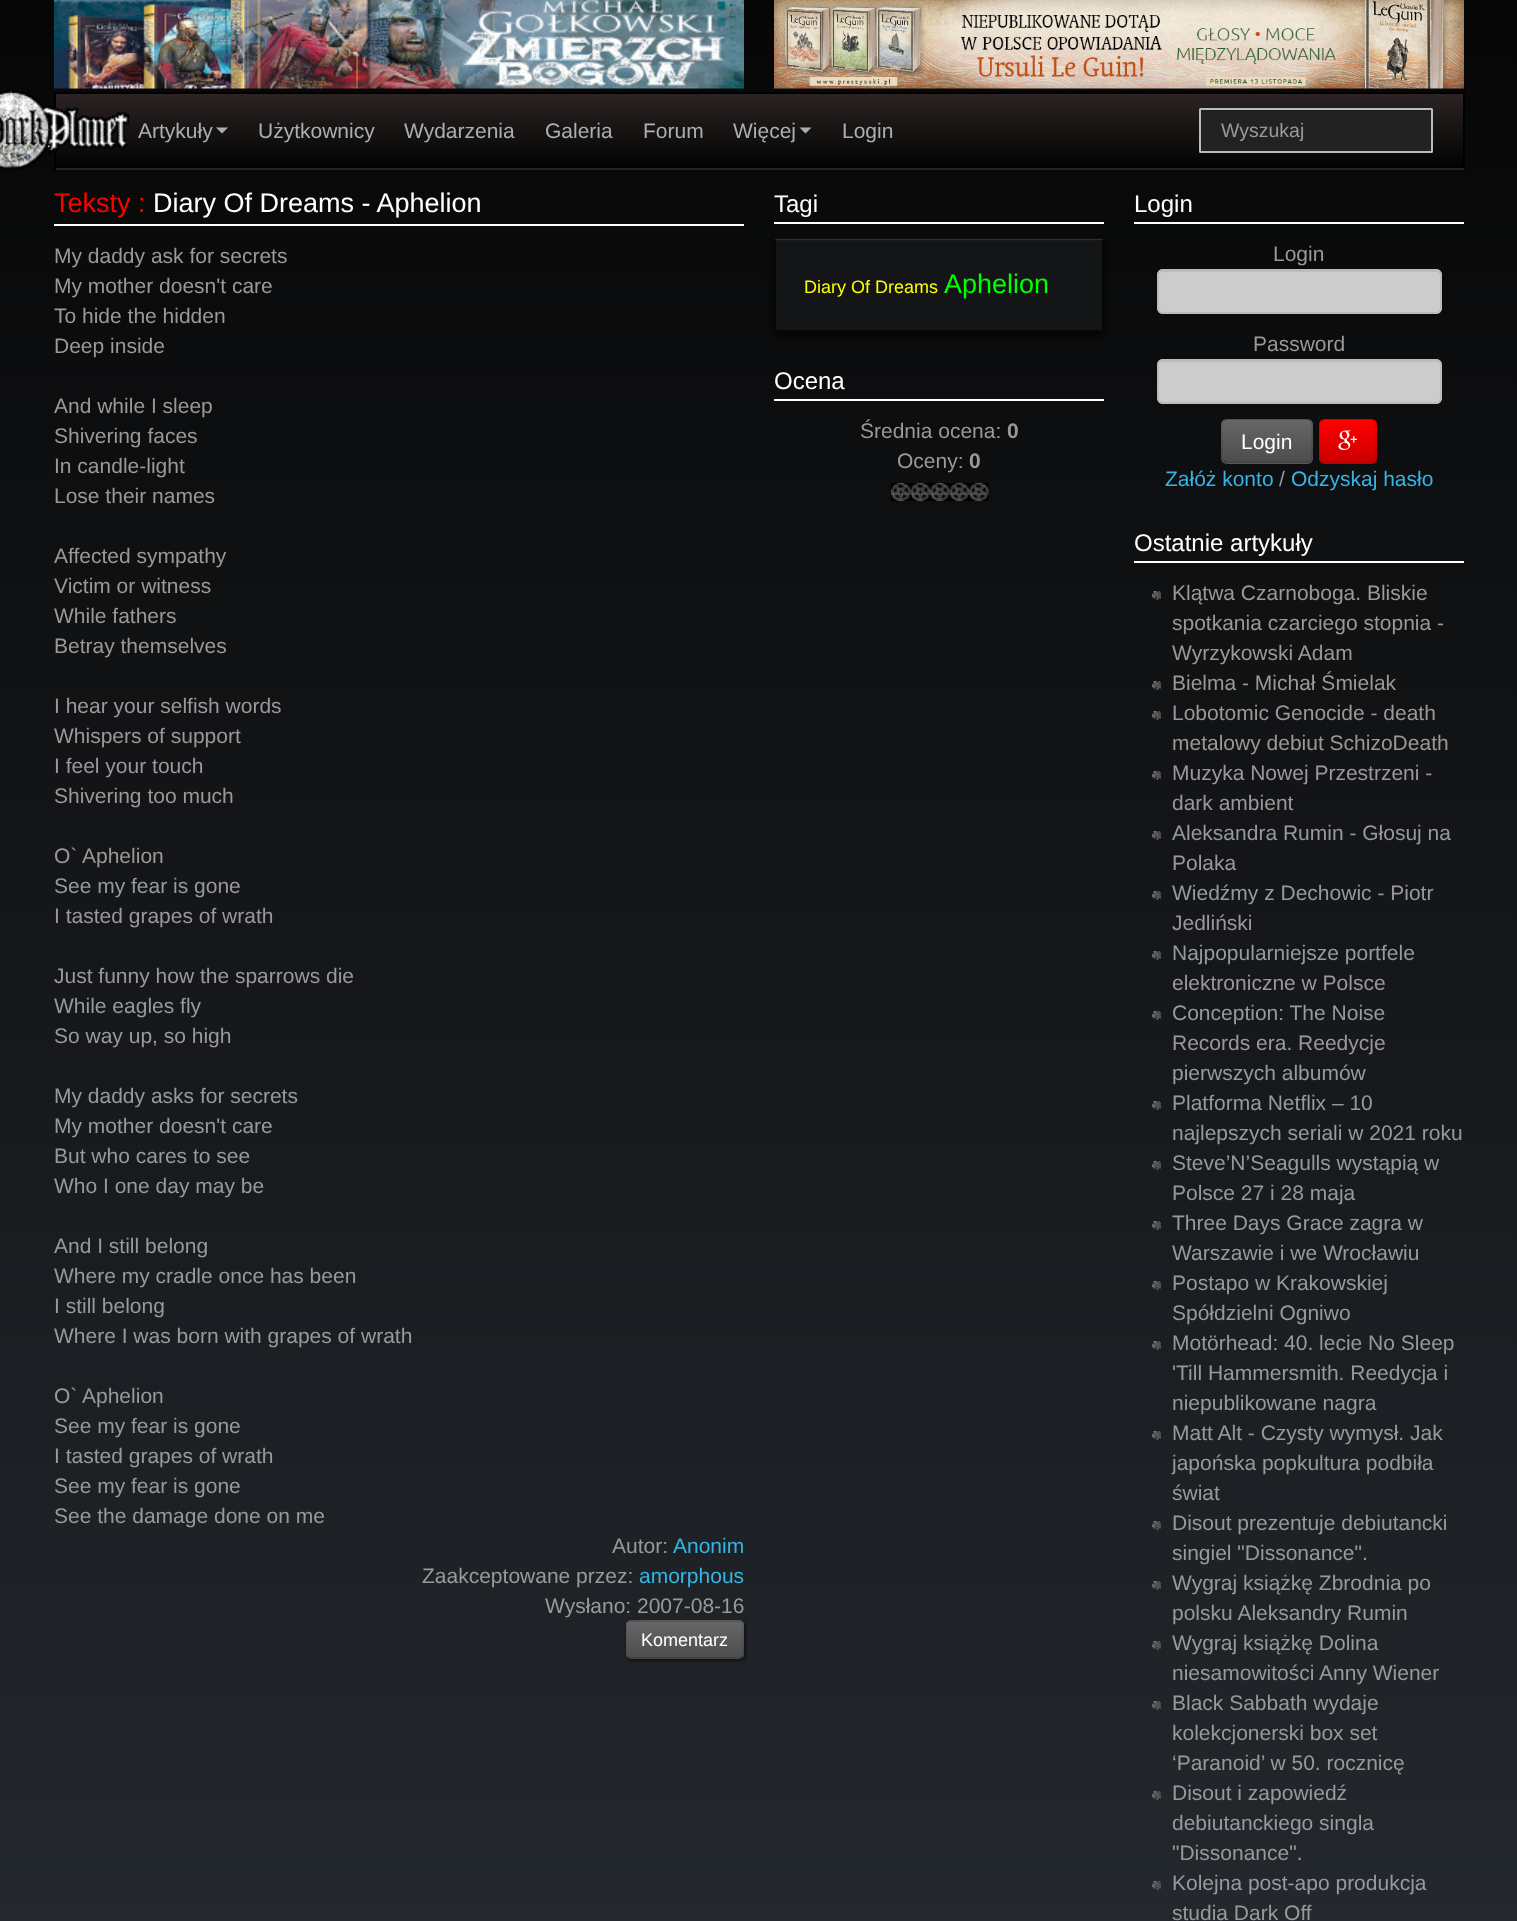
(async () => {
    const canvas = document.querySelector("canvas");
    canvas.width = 1517;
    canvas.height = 1921;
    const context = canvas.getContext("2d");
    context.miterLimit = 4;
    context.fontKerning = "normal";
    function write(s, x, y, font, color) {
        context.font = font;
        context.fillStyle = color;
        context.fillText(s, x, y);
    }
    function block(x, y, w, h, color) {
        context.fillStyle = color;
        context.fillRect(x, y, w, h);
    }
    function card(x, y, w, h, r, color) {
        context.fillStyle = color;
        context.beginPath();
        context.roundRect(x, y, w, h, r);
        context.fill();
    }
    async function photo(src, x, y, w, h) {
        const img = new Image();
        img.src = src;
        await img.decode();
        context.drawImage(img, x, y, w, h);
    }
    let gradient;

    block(0, 0, 1517, 1921, "rgb(255, 255, 255)");
    gradient = context.createLinearGradient(759, 0, 759, 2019);
    gradient.addColorStop(0, "rgb(6, 6, 6)");
    gradient.addColorStop(1, "rgb(37, 42, 48)");
    context.fillStyle = gradient;
    context.fillRect(0, 0, 1517, 1921);
    await photo("media/1.png", 54, 0, 690, 89);
    await photo("media/2.png", 774, 0, 690, 89);
    gradient = context.createLinearGradient(759, 93, 759, 168);
    gradient.addColorStop(0, "rgb(44, 36, 36)");
    gradient.addColorStop(1, "rgb(2, 2, 2)");
    context.fillStyle = gradient;
    context.fillRect(56, 94, 1407, 74);
    block(54, 92, 1410, 2, "rgb(0, 0, 0)");
    block(1463, 92, 2, 78, "rgb(0, 0, 0)");
    block(54, 168, 1410, 2, "rgb(34, 34, 34)");
    block(54, 92, 2, 78, "rgb(0, 0, 0)");
    await photo("media/3.png", 0, 90, 130, 80);
    write("Artykuły", 138, 138, "21px Liberation Sans", "rgb(173, 175, 174)");
    context.beginPath();
    context.moveTo(216, 127.5);
    context.lineTo(228, 127.5);
    context.lineTo(222, 133.5);
    context.closePath();
    context.fill();
    write("Użytkownicy", 258, 138, "21px Liberation Sans", "rgb(173, 175, 174)");
    write("Wydarzenia", 404, 138, "21px Liberation Sans", "rgb(173, 175, 174)");
    write("Galeria", 545, 138, "21px Liberation Sans", "rgb(173, 175, 174)");
    write("Forum", 643, 138, "21px Liberation Sans", "rgb(173, 175, 174)");
    write("Więcej", 733, 138, "21px Liberation Sans", "rgb(173, 175, 174)");
    context.beginPath();
    context.moveTo(799.5, 127.5);
    context.lineTo(811.5, 127.5);
    context.lineTo(805.5, 133.5);
    context.closePath();
    context.fill();
    write("Login", 842, 138, "21px Liberation Sans", "rgb(173, 175, 174)");
    card(1199, 108, 234, 45, 1.5, "rgb(34, 34, 34)");
    block(1200, 110, 231, 2, "rgb(31, 31, 31)");
    context.beginPath();
    context.roundRect(1200, 109, 232, 43, 0.5);
    context.strokeStyle = "rgb(187, 187, 187)";
    context.lineWidth = 2;
    context.stroke();
    write("Wyszukaj", 1221, 137, "19.5px Liberation Sans", "rgb(153, 153, 153)");
    block(54, 224, 690, 2, "rgb(255, 255, 255)");
    write("Teksty :", 54, 212, "27px Liberation Sans", "rgb(255, 0, 0)");
    write("Diary Of Dreams - Aphelion", 153, 212, "27px Liberation Sans", "rgb(255, 255, 255)");
    write("My daddy ask for secrets", 54, 263, "21px Liberation Sans", "rgb(153, 153, 153)");
    write("My mother doesn't care", 54, 293, "21px Liberation Sans", "rgb(153, 153, 153)");
    write("To hide the hidden", 54, 323, "21px Liberation Sans", "rgb(153, 153, 153)");
    write("Deep inside", 54, 353, "21px Liberation Sans", "rgb(153, 153, 153)");
    write("And while I sleep", 54, 413, "21px Liberation Sans", "rgb(153, 153, 153)");
    write("Shivering faces", 54, 443, "21px Liberation Sans", "rgb(153, 153, 153)");
    write("In candle-light", 54, 473, "21px Liberation Sans", "rgb(153, 153, 153)");
    write("Lose their names", 54, 503, "21px Liberation Sans", "rgb(153, 153, 153)");
    write("Affected sympathy", 54, 563, "21px Liberation Sans", "rgb(153, 153, 153)");
    write("Victim or witness", 54, 593, "21px Liberation Sans", "rgb(153, 153, 153)");
    write("While fathers", 54, 623, "21px Liberation Sans", "rgb(153, 153, 153)");
    write("Betray themselves", 54, 653, "21px Liberation Sans", "rgb(153, 153, 153)");
    write("I hear your selfish words", 54, 713, "21px Liberation Sans", "rgb(153, 153, 153)");
    write("Whispers of support", 54, 743, "21px Liberation Sans", "rgb(153, 153, 153)");
    write("I feel your touch", 54, 773, "21px Liberation Sans", "rgb(153, 153, 153)");
    write("Shivering too much", 54, 803, "21px Liberation Sans", "rgb(153, 153, 153)");
    write("O` Aphelion", 54, 863, "21px Liberation Sans", "rgb(153, 153, 153)");
    write("See my fear is gone", 54, 893, "21px Liberation Sans", "rgb(153, 153, 153)");
    write("I tasted grapes of wrath", 54, 923, "21px Liberation Sans", "rgb(153, 153, 153)");
    write("Just funny how the sparrows die", 54, 983, "21px Liberation Sans", "rgb(153, 153, 153)");
    write("While eagles fly", 54, 1013, "21px Liberation Sans", "rgb(153, 153, 153)");
    write("So way up, so high", 54, 1043, "21px Liberation Sans", "rgb(153, 153, 153)");
    write("My daddy asks for secrets", 54, 1103, "21px Liberation Sans", "rgb(153, 153, 153)");
    write("My mother doesn't care", 54, 1133, "21px Liberation Sans", "rgb(153, 153, 153)");
    write("But who cares to see", 54, 1163, "21px Liberation Sans", "rgb(153, 153, 153)");
    write("Who I one day may be", 54, 1193, "21px Liberation Sans", "rgb(153, 153, 153)");
    write("And I still belong", 54, 1253, "21px Liberation Sans", "rgb(153, 153, 153)");
    write("Where my cradle once has been", 54, 1283, "21px Liberation Sans", "rgb(153, 153, 153)");
    write("I still belong", 54, 1313, "21px Liberation Sans", "rgb(153, 153, 153)");
    write("Where I was born with grapes of wrath", 54, 1343, "21px Liberation Sans", "rgb(153, 153, 153)");
    write("O` Aphelion", 54, 1403, "21px Liberation Sans", "rgb(153, 153, 153)");
    write("See my fear is gone", 54, 1433, "21px Liberation Sans", "rgb(153, 153, 153)");
    write("I tasted grapes of wrath", 54, 1463, "21px Liberation Sans", "rgb(153, 153, 153)");
    write("See my fear is gone", 54, 1493, "21px Liberation Sans", "rgb(153, 153, 153)");
    write("See the damage done on me", 54, 1523, "21px Liberation Sans", "rgb(153, 153, 153)");
    write("Autor:", 612, 1553, "21px Liberation Sans", "rgb(153, 153, 153)");
    write("Anonim", 673, 1553, "21px Liberation Sans", "rgb(51, 181, 229)");
    write("Zaakceptowane przez:", 422, 1583, "21px Liberation Sans", "rgb(153, 153, 153)");
    write("amorphous", 639, 1583, "21px Liberation Sans", "rgb(51, 181, 229)");
    write("Wysłano: 2007-08-16", 545, 1613, "21px Liberation Sans", "rgb(153, 153, 153)");
    context.fillStyle = "rgb(17, 17, 17)";
    context.filter = "blur(1.5px)";
    context.beginPath();
    context.roundRect(627, 1622, 119, 39, 5);
    context.fill();
    context.filter = "none";
    card(626, 1620, 118, 39, 5, "rgb(92, 92, 92)");
    context.save();
    context.beginPath();
    context.roundRect(626, 1620, 118, 39, 5);
    context.clip();
    gradient = context.createLinearGradient(685, 1622, 685, 1658);
    gradient.addColorStop(0, "rgb(102, 102, 102)");
    gradient.addColorStop(1, "rgb(77, 77, 77)");
    context.fillStyle = gradient;
    context.fillRect(626, 1622, 118, 36);
    context.restore();
    context.beginPath();
    context.moveTo(742, 1657);
    context.lineTo(739.5, 1658);
    context.lineTo(629.5, 1658);
    context.lineTo(627.5, 1657);
    context.strokeStyle = "rgba(0, 0, 0, 0.25)";
    context.lineWidth = 1.5;
    context.stroke();
    context.beginPath();
    context.moveTo(627.5, 1657);
    context.bezierCurveTo(625.5, 1655.5, 626, 1651.5, 626, 1649.5);
    context.lineTo(626, 1639.5);
    context.bezierCurveTo(626, 1616.5, 623, 1621, 648, 1621);
    context.lineTo(739.5, 1621);
    context.bezierCurveTo(744, 1621, 743, 1626.5, 743, 1629.5);
    context.lineTo(743, 1644.5);
    context.bezierCurveTo(743, 1647, 744.5, 1654.5, 742, 1657);
    context.strokeStyle = "rgba(0, 0, 0, 0.1)";
    context.stroke();
    write("Komentarz", 641, 1646, "18px Liberation Sans", "rgb(255, 255, 255)");
    block(774, 222, 330, 2, "rgb(255, 255, 255)");
    write("Tagi", 774, 212, "24px Liberation Sans", "rgb(255, 255, 255)");
    context.fillStyle = "rgba(0, 0, 0, 0.8)";
    context.filter = "blur(3px)";
    context.beginPath();
    context.roundRect(774, 242, 330, 93, 1.5);
    context.fill();
    context.filter = "none";
    card(774, 239, 330, 93, 1.5, "rgb(19, 21, 23)");
    context.beginPath();
    context.moveTo(775, 239.5);
    context.lineTo(1103, 239.5);
    context.strokeStyle = "rgb(47, 47, 47)";
    context.stroke();
    context.beginPath();
    context.moveTo(1103, 239.5);
    context.lineTo(1103, 330);
    context.lineTo(1102.5, 331);
    context.lineTo(775.5, 331);
    context.lineTo(775, 330);
    context.lineTo(775, 239.5);
    context.strokeStyle = "rgb(3, 3, 3)";
    context.stroke();
    write("Diary Of Dreams", 804, 293, "18px Liberation Sans", "rgb(255, 255, 0)");
    write("Aphelion", 944, 293, "27px Liberation Sans", "rgb(0, 255, 0)");
    block(774, 399, 330, 2, "rgb(255, 255, 255)");
    write("Ocena", 774, 389, "24px Liberation Sans", "rgb(255, 255, 255)");
    write("Średnia ocena:", 860, 438, "21px Liberation Sans", "rgb(153, 153, 153)");
    write("0", 1007, 438, "bold 21px Liberation Sans", "rgb(153, 153, 153)");
    write("Oceny:", 897, 468, "21px Liberation Sans", "rgb(153, 153, 153)");
    write("0", 969, 468, "bold 21px Liberation Sans", "rgb(153, 153, 153)");
    await photo("media/4.png", 891, 483, 20, 18);
    await photo("media/5.png", 910, 483, 20, 18);
    await photo("media/4.png", 930, 483, 20, 18);
    await photo("media/5.png", 949, 483, 20, 18);
    await photo("media/4.png", 969, 483, 20, 18);
    block(1134, 222, 330, 2, "rgb(255, 255, 255)");
    write("Login", 1134, 212, "24px Liberation Sans", "rgb(255, 255, 255)");
    write("Login", 1273, 261, "21px Liberation Sans", "rgb(153, 153, 153)");
    card(1157, 269, 285, 45, 6, "rgb(204, 204, 204)");
    context.fillStyle = "rgb(189, 189, 189)";
    context.beginPath();
    context.moveTo(1162, 272);
    context.lineTo(1436, 272);
    context.bezierCurveTo(1438, 272, 1440, 274, 1440, 276);
    context.lineTo(1440, 275);
    context.bezierCurveTo(1440, 272, 1438, 270, 1435, 270);
    context.lineTo(1163, 270);
    context.bezierCurveTo(1160, 270, 1158, 272, 1158, 275);
    context.lineTo(1158, 276);
    context.bezierCurveTo(1158, 274, 1160, 272, 1162, 272);
    context.closePath();
    context.fill();
    context.beginPath();
    context.roundRect(1158, 270, 283, 43, 5);
    context.strokeStyle = "rgb(187, 187, 187)";
    context.lineWidth = 2;
    context.stroke();
    write("Password", 1253, 351, "21px Liberation Sans", "rgb(153, 153, 153)");
    card(1157, 359, 285, 45, 6, "rgb(204, 204, 204)");
    context.fillStyle = "rgb(189, 189, 189)";
    context.beginPath();
    context.moveTo(1162, 362);
    context.lineTo(1436, 362);
    context.bezierCurveTo(1438, 362, 1440, 364, 1440, 366);
    context.lineTo(1440, 365);
    context.bezierCurveTo(1440, 362, 1438, 360, 1435, 360);
    context.lineTo(1163, 360);
    context.bezierCurveTo(1160, 360, 1158, 362, 1158, 365);
    context.lineTo(1158, 366);
    context.bezierCurveTo(1158, 364, 1160, 362, 1162, 362);
    context.closePath();
    context.fill();
    context.beginPath();
    context.roundRect(1158, 360, 283, 43, 5);
    context.stroke();
    card(1221, 419, 92, 45, 6, "rgb(92, 92, 92)");
    context.save();
    context.beginPath();
    context.roundRect(1221, 419, 92, 45, 6);
    context.clip();
    gradient = context.createLinearGradient(1267, 420, 1267, 462);
    gradient.addColorStop(0, "rgb(102, 102, 102)");
    gradient.addColorStop(1, "rgb(77, 77, 77)");
    context.fillStyle = gradient;
    context.fillRect(1221, 420, 92, 42);
    context.restore();
    context.beginPath();
    context.moveTo(1310, 461);
    context.lineTo(1307, 462.5);
    context.lineTo(1226.5, 462.5);
    context.lineTo(1223.5, 461);
    context.strokeStyle = "rgba(0, 0, 0, 0.25)";
    context.lineWidth = 1.5;
    context.stroke();
    context.beginPath();
    context.moveTo(1223.5, 461);
    context.bezierCurveTo(1221, 459, 1222, 455, 1222, 452);
    context.lineTo(1222, 441);
    context.bezierCurveTo(1222, 418, 1217.5, 419, 1240, 419);
    context.lineTo(1293, 419);
    context.bezierCurveTo(1316, 419, 1312, 418, 1312, 441);
    context.lineTo(1312, 452);
    context.bezierCurveTo(1312, 455, 1312.5, 459, 1310, 461);
    context.strokeStyle = "rgba(0, 0, 0, 0.1)";
    context.stroke();
    write("Login", 1241, 449, "21px Liberation Sans", "rgb(255, 255, 255)");
    card(1319, 419, 58, 45, 6, "rgb(235, 0, 0)");
    context.save();
    context.beginPath();
    context.roundRect(1319, 419, 58, 45, 6);
    context.clip();
    gradient = context.createLinearGradient(1348, 420, 1348, 462);
    gradient.addColorStop(0, "rgb(255, 0, 0)");
    gradient.addColorStop(1, "rgb(204, 0, 0)");
    context.fillStyle = gradient;
    context.fillRect(1319, 420, 58, 42);
    context.restore();
    context.beginPath();
    context.moveTo(1374.5, 461);
    context.bezierCurveTo(1373.5, 462, 1372.5, 463, 1371, 463);
    context.lineTo(1324.5, 463);
    context.bezierCurveTo(1323, 463, 1322, 462, 1321, 461);
    context.strokeStyle = "rgba(0, 0, 0, 0.25)";
    context.stroke();
    context.beginPath();
    context.moveTo(1321, 461);
    context.bezierCurveTo(1320, 460, 1319, 459, 1319, 457.5);
    context.lineTo(1319, 424.5);
    context.bezierCurveTo(1319, 423, 1320, 422, 1321, 421);
    context.bezierCurveTo(1322, 420, 1323, 419, 1324.5, 419);
    context.lineTo(1371, 419);
    context.bezierCurveTo(1372.5, 419, 1373.5, 420, 1374.5, 421);
    context.bezierCurveTo(1375.5, 422, 1376, 423, 1376, 424.5);
    context.lineTo(1376, 457.5);
    context.bezierCurveTo(1376, 459, 1375.5, 460, 1374.5, 461);
    context.strokeStyle = "rgba(0, 0, 0, 0.1)";
    context.stroke();
    await photo("media/6.png", 1338, 430, 19, 20);
    write("Załóż konto", 1165, 486, "21px Liberation Sans", "rgb(51, 181, 229)");
    write("/", 1279, 486, "21px Liberation Sans", "rgb(153, 153, 153)");
    write("Odzyskaj hasło", 1291, 486, "21px Liberation Sans", "rgb(51, 181, 229)");
    block(1134, 561, 330, 2, "rgb(255, 255, 255)");
    write("Ostatnie artykuły", 1134, 551, "24px Liberation Sans", "rgb(255, 255, 255)");
    await photo("media/7.png", 1152, 591, 9, 9);
    write("Klątwa Czarnoboga. Bliskie", 1172, 600, "21px Liberation Sans", "rgb(153, 153, 153)");
    write("spotkania czarciego stopnia -", 1172, 630, "21px Liberation Sans", "rgb(153, 153, 153)");
    write("Wyrzykowski Adam", 1172, 660, "21px Liberation Sans", "rgb(153, 153, 153)");
    await photo("media/8.png", 1152, 681, 9, 9);
    write("Bielma - Michał Śmielak", 1172, 690, "21px Liberation Sans", "rgb(153, 153, 153)");
    await photo("media/9.png", 1152, 711, 9, 9);
    write("Lobotomic Genocide - death", 1172, 720, "21px Liberation Sans", "rgb(153, 153, 153)");
    write("metalowy debiut SchizoDeath", 1172, 750, "21px Liberation Sans", "rgb(153, 153, 153)");
    await photo("media/10.png", 1152, 771, 9, 9);
    write("Muzyka Nowej Przestrzeni -", 1172, 780, "21px Liberation Sans", "rgb(153, 153, 153)");
    write("dark ambient", 1172, 810, "21px Liberation Sans", "rgb(153, 153, 153)");
    await photo("media/11.png", 1152, 831, 9, 9);
    write("Aleksandra Rumin - Głosuj na", 1172, 840, "21px Liberation Sans", "rgb(153, 153, 153)");
    write("Polaka", 1172, 870, "21px Liberation Sans", "rgb(153, 153, 153)");
    await photo("media/12.png", 1152, 891, 9, 9);
    write("Wiedźmy z Dechowic - Piotr", 1172, 900, "21px Liberation Sans", "rgb(153, 153, 153)");
    write("Jedliński", 1172, 930, "21px Liberation Sans", "rgb(153, 153, 153)");
    await photo("media/13.png", 1152, 951, 9, 9);
    write("Najpopularniejsze portfele", 1172, 960, "21px Liberation Sans", "rgb(153, 153, 153)");
    write("elektroniczne w Polsce", 1172, 990, "21px Liberation Sans", "rgb(153, 153, 153)");
    await photo("media/14.png", 1152, 1011, 9, 9);
    write("Conception: The Noise", 1172, 1020, "21px Liberation Sans", "rgb(153, 153, 153)");
    write("Records era. Reedycje", 1172, 1050, "21px Liberation Sans", "rgb(153, 153, 153)");
    write("pierwszych albumów", 1172, 1080, "21px Liberation Sans", "rgb(153, 153, 153)");
    await photo("media/15.png", 1152, 1101, 9, 9);
    write("Platforma Netflix – 10", 1172, 1110, "21px Liberation Sans", "rgb(153, 153, 153)");
    write("najlepszych seriali w 2021 roku", 1172, 1140, "21px Liberation Sans", "rgb(153, 153, 153)");
    await photo("media/16.png", 1152, 1161, 9, 9);
    write("Steve’N’Seagulls wystąpią w", 1172, 1170, "21px Liberation Sans", "rgb(153, 153, 153)");
    write("Polsce 27 i 28 maja", 1172, 1200, "21px Liberation Sans", "rgb(153, 153, 153)");
    await photo("media/17.png", 1152, 1221, 9, 9);
    write("Three Days Grace zagra w", 1172, 1230, "21px Liberation Sans", "rgb(153, 153, 153)");
    write("Warszawie i we Wrocławiu", 1172, 1260, "21px Liberation Sans", "rgb(153, 153, 153)");
    await photo("media/18.png", 1152, 1281, 9, 9);
    write("Postapo w Krakowskiej", 1172, 1290, "21px Liberation Sans", "rgb(153, 153, 153)");
    write("Spółdzielni Ogniwo", 1172, 1320, "21px Liberation Sans", "rgb(153, 153, 153)");
    await photo("media/19.png", 1152, 1341, 9, 9);
    write("Motörhead: 40. lecie No Sleep", 1172, 1350, "21px Liberation Sans", "rgb(153, 153, 153)");
    write("'Till Hammersmith. Reedycja i", 1172, 1380, "21px Liberation Sans", "rgb(153, 153, 153)");
    write("niepublikowane nagra", 1172, 1410, "21px Liberation Sans", "rgb(153, 153, 153)");
    await photo("media/20.png", 1152, 1431, 9, 9);
    write("Matt Alt - Czysty wymysł. Jak", 1172, 1440, "21px Liberation Sans", "rgb(153, 153, 153)");
    write("japońska popkultura podbiła", 1172, 1470, "21px Liberation Sans", "rgb(153, 153, 153)");
    write("świat", 1172, 1500, "21px Liberation Sans", "rgb(153, 153, 153)");
    await photo("media/21.png", 1152, 1521, 9, 9);
    write("Disout prezentuje debiutancki", 1172, 1530, "21px Liberation Sans", "rgb(153, 153, 153)");
    write("singiel \"Dissonance\".", 1172, 1560, "21px Liberation Sans", "rgb(153, 153, 153)");
    await photo("media/22.png", 1152, 1581, 9, 9);
    write("Wygraj książkę Zbrodnia po", 1172, 1590, "21px Liberation Sans", "rgb(153, 153, 153)");
    write("polsku Aleksandry Rumin", 1172, 1620, "21px Liberation Sans", "rgb(153, 153, 153)");
    await photo("media/23.png", 1152, 1641, 9, 9);
    write("Wygraj książkę Dolina", 1172, 1650, "21px Liberation Sans", "rgb(153, 153, 153)");
    write("niesamowitości Anny Wiener", 1172, 1680, "21px Liberation Sans", "rgb(153, 153, 153)");
    await photo("media/24.png", 1152, 1701, 9, 9);
    write("Black Sabbath wydaje", 1172, 1710, "21px Liberation Sans", "rgb(153, 153, 153)");
    write("kolekcjonerski box set", 1172, 1740, "21px Liberation Sans", "rgb(153, 153, 153)");
    write("‘Paranoid’ w 50. rocznicę", 1172, 1770, "21px Liberation Sans", "rgb(153, 153, 153)");
    await photo("media/25.png", 1152, 1791, 9, 9);
    write("Disout i zapowiedź", 1172, 1800, "21px Liberation Sans", "rgb(153, 153, 153)");
    write("debiutanckiego singla", 1172, 1830, "21px Liberation Sans", "rgb(153, 153, 153)");
    write("\"Dissonance\".", 1172, 1860, "21px Liberation Sans", "rgb(153, 153, 153)");
    await photo("media/26.png", 1152, 1881, 9, 9);
    write("Kolejna post-apo produkcja", 1172, 1890, "21px Liberation Sans", "rgb(153, 153, 153)");
    write("studia Dark Off", 1172, 1920, "21px Liberation Sans", "rgb(153, 153, 153)");
})();
